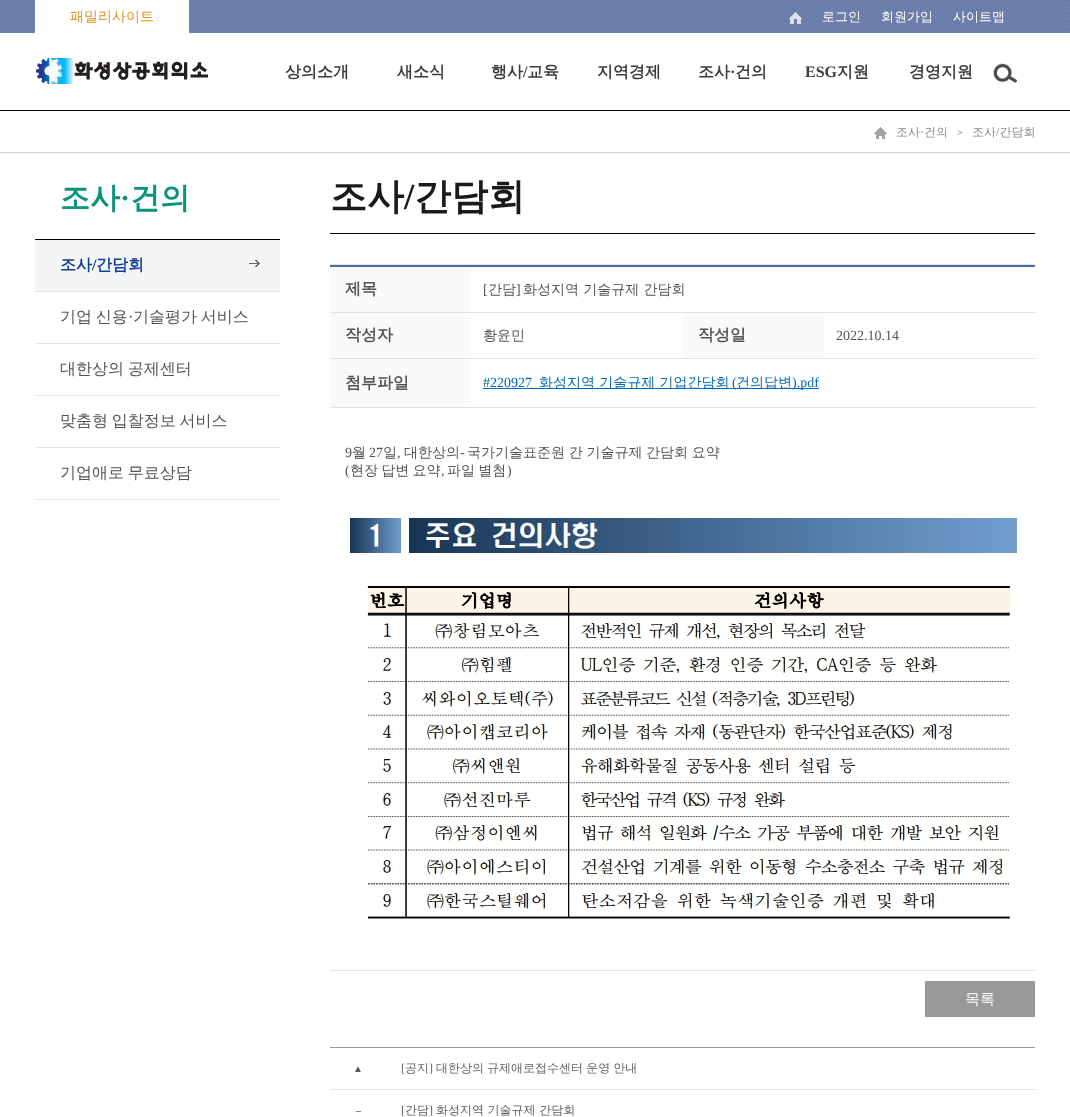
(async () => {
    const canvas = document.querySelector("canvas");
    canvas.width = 1070;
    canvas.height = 1117;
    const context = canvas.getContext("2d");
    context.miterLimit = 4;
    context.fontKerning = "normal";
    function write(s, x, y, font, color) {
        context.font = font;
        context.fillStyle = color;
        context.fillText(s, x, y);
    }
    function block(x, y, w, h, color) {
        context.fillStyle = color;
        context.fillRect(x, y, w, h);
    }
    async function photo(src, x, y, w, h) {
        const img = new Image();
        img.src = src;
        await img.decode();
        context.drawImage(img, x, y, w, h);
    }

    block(0, 0, 1070, 1117, "rgb(255, 255, 255)");
    await photo("media/1.png", 0, 0, 1070, 33);
    block(35, 0, 154, 33, "rgb(255, 255, 255)");
    write("패밀리사이트", 70, 21, "500 14px WenQuanYi Zen Hei", "rgb(224, 146, 35)");
    await photo("media/2.png", 789, 12, 13, 12);
    write("로그인", 822, 21, "500 13px WenQuanYi Zen Hei", "rgb(255, 255, 255)");
    write("회원가입", 881, 21, "500 13px WenQuanYi Zen Hei", "rgb(255, 255, 255)");
    write("사이트맵", 953, 21, "500 13px WenQuanYi Zen Hei", "rgb(255, 255, 255)");
    await photo("media/3.png", 36, 58, 172, 26);
    write("상의소개", 285, 77, "bold 16px WenQuanYi Zen Hei", "rgb(60, 60, 60)");
    write("새소식", 397, 77, "bold 16px WenQuanYi Zen Hei", "rgb(60, 60, 60)");
    write("행사", 491, 77, "bold 16px WenQuanYi Zen Hei", "rgb(60, 60, 60)");
    write("/", 523, 77, "bold 16px Liberation Serif", "rgb(60, 60, 60)");
    write("교육", 527, 77, "bold 16px WenQuanYi Zen Hei", "rgb(60, 60, 60)");
    write("지역경제", 597, 77, "bold 16px WenQuanYi Zen Hei", "rgb(60, 60, 60)");
    write("조사", 698, 77, "bold 16px WenQuanYi Zen Hei", "rgb(60, 60, 60)");
    write("·", 730, 77, "bold 16px Liberation Serif", "rgb(60, 60, 60)");
    write("건의", 735, 77, "bold 16px WenQuanYi Zen Hei", "rgb(60, 60, 60)");
    write("ESG", 805, 77, "bold 16px Liberation Serif", "rgb(60, 60, 60)");
    write("지원", 837, 77, "bold 16px WenQuanYi Zen Hei", "rgb(60, 60, 60)");
    write("경영지원", 909, 77, "bold 16px WenQuanYi Zen Hei", "rgb(60, 60, 60)");
    await photo("media/4.png", 993, 63, 24, 20);
    block(0, 110, 1070, 1, "rgb(0, 0, 0)");
    block(0, 152, 1070, 1, "rgb(205, 205, 205)");
    await photo("media/5.png", 874, 127, 13, 12);
    await photo("media/6.png", 957, 130, 6, 5);
    write("조사", 896, 136, "500 12px WenQuanYi Zen Hei", "rgb(138, 137, 137)");
    write("·", 920, 136, "12px Liberation Serif", "rgb(138, 137, 137)");
    write("건의", 924, 136, "500 12px WenQuanYi Zen Hei", "rgb(138, 137, 137)");
    write("조사 간담회", 972, 136, "500 12px WenQuanYi Zen Hei", "rgb(138, 137, 137)");
    write("/", 996, 136, "12px Liberation Serif", "rgb(138, 137, 137)");
    write("조사", 60, 208, "bold 30px WenQuanYi Zen Hei", "rgb(12, 147, 123)");
    write("·", 120, 208, "bold 30px Liberation Serif", "rgb(12, 147, 123)");
    write("건의", 130, 208, "bold 30px WenQuanYi Zen Hei", "rgb(12, 147, 123)");
    block(35, 239, 245, 1, "rgb(0, 0, 0)");
    block(35, 291, 245, 1, "rgb(227, 228, 229)");
    block(35, 240, 245, 51, "rgb(244, 245, 247)");
    await photo("media/7.png", 249, 260, 11, 7);
    write("조사", 60, 270, "bold 16px WenQuanYi Zen Hei", "rgb(16, 62, 147)");
    write("/", 92, 270, "bold 16px Liberation Serif", "rgb(16, 62, 147)");
    write("간담회", 96, 270, "bold 16px WenQuanYi Zen Hei", "rgb(16, 62, 147)");
    block(35, 343, 245, 1, "rgb(227, 228, 229)");
    context.wordSpacing = "-1px";
    write("기업 신용", 60, 322, "500 16px WenQuanYi Zen Hei", "rgb(84, 84, 84)");
    context.wordSpacing = "0px";
    write("·", 128, 322, "16px Liberation Serif", "rgb(84, 84, 84)");
    context.wordSpacing = "-1px";
    write("기술평가 서비스", 133, 322, "500 16px WenQuanYi Zen Hei", "rgb(84, 84, 84)");
    block(35, 395, 245, 1, "rgb(227, 228, 229)");
    write("대한상의 공제센터", 60, 374, "500 16px WenQuanYi Zen Hei", "rgb(84, 84, 84)");
    block(35, 447, 245, 1, "rgb(227, 228, 229)");
    write("맞춤형 입찰정보 서비스", 60, 426, "500 16px WenQuanYi Zen Hei", "rgb(84, 84, 84)");
    block(35, 499, 245, 1, "rgb(227, 228, 229)");
    write("기업애로 무료상담", 60, 478, "500 16px WenQuanYi Zen Hei", "rgb(84, 84, 84)");
    block(330, 233, 705, 1, "rgb(0, 0, 0)");
    context.wordSpacing = "0px";
    write("조사", 330, 209, "bold 37px WenQuanYi Zen Hei", "rgb(26, 26, 26)");
    write("/", 404, 209, "bold 37px Liberation Serif", "rgb(26, 26, 26)");
    write("간담회", 414, 209, "bold 37px WenQuanYi Zen Hei", "rgb(26, 26, 26)");
    block(330, 264, 705, 1, "rgb(228, 228, 228)");
    block(330, 265, 705, 2, "rgb(78, 109, 165)");
    block(330, 267, 141, 45, "rgb(250, 250, 250)");
    write("제목", 345, 294, "bold 16px WenQuanYi Zen Hei", "rgb(84, 84, 84)");
    block(330, 312, 706, 1, "rgb(228, 228, 228)");
    write("[", 483, 294, "14px Liberation Serif", "rgb(84, 84, 84)");
    write("간담", 488, 294, "500 14px WenQuanYi Zen Hei", "rgb(84, 84, 84)");
    write("]", 516, 294, "14px Liberation Serif", "rgb(84, 84, 84)");
    write("화성지역 기술규제 간담회", 523, 294, "500 14px WenQuanYi Zen Hei", "rgb(84, 84, 84)");
    block(330, 313, 141, 45, "rgb(250, 250, 250)");
    write("작성자", 345, 340, "bold 16px WenQuanYi Zen Hei", "rgb(84, 84, 84)");
    write("황윤민", 483, 340, "500 14px WenQuanYi Zen Hei", "rgb(84, 84, 84)");
    block(683, 313, 141, 45, "rgb(250, 250, 250)");
    write("작성일", 698, 340, "bold 16px WenQuanYi Zen Hei", "rgb(84, 84, 84)");
    block(330, 358, 706, 1, "rgb(228, 228, 228)");
    write("2022.10.14", 836, 340, "14px Liberation Serif", "rgb(84, 84, 84)");
    block(330, 359, 141, 48, "rgb(250, 250, 250)");
    write("첨부파일", 345, 388, "bold 16px WenQuanYi Zen Hei", "rgb(84, 84, 84)");
    block(330, 407, 706, 1, "rgb(228, 228, 228)");
    write("#220927", 483, 387, "14px Liberation Serif", "rgb(0, 104, 183)");
    block(483, 388, 336, 1, "rgb(0, 104, 183)");
    write("화성지역 기술규제 기업간담회", 539, 387, "500 14px WenQuanYi Zen Hei", "rgb(0, 104, 183)");
    write("(", 732, 387, "14px Liberation Serif", "rgb(0, 104, 183)");
    write("건의답변", 736, 387, "500 14px WenQuanYi Zen Hei", "rgb(0, 104, 183)");
    write(").pdf", 792, 387, "14px Liberation Serif", "rgb(0, 104, 183)");
    block(330, 970, 706, 1, "rgb(228, 228, 228)");
    write("9", 345, 457, "14px Liberation Serif", "rgb(84, 84, 84)");
    write("월", 352, 457, "500 14px WenQuanYi Zen Hei", "rgb(84, 84, 84)");
    write("27", 369, 457, "14px Liberation Serif", "rgb(84, 84, 84)");
    write("일", 383, 457, "500 14px WenQuanYi Zen Hei", "rgb(84, 84, 84)");
    write("대한상의", 404, 457, "500 14px WenQuanYi Zen Hei", "rgb(84, 84, 84)");
    write("-", 460, 457, "14px Liberation Serif", "rgb(84, 84, 84)");
    context.wordSpacing = "-0.5px";
    write("국가기술표준원 간 기술규제 간담회 요약", 467, 457, "500 14px WenQuanYi Zen Hei", "rgb(84, 84, 84)");
    context.wordSpacing = "0px";
    write(",", 397, 457, "14px Liberation Serif", "rgb(84, 84, 84)");
    write("(", 345, 475, "14px Liberation Serif", "rgb(84, 84, 84)");
    context.wordSpacing = "-1px";
    write("현장 답변 요약", 350, 475, "500 14px WenQuanYi Zen Hei", "rgb(84, 84, 84)");
    context.wordSpacing = "0px";
    write(",", 441, 475, "14px Liberation Serif", "rgb(84, 84, 84)");
    context.wordSpacing = "-1px";
    write("파일 별첨", 447, 475, "500 14px WenQuanYi Zen Hei", "rgb(84, 84, 84)");
    context.wordSpacing = "0px";
    write(")", 507, 475, "14px Liberation Serif", "rgb(84, 84, 84)");
    await photo("media/8.png", 349, 517, 669, 402);
    block(925, 981, 110, 36, "rgb(153, 153, 153)");
    write("목록", 965, 1004, "500 15px WenQuanYi Zen Hei", "rgb(255, 255, 255)");
    block(330, 1047, 705, 1, "rgb(155, 155, 155)");
    write("▲", 353, 1072, "bold 10px Liberation Serif", "rgb(90, 90, 90)");
    block(330, 1089, 706, 1, "rgb(228, 228, 228)");
    write("[", 401, 1072, "12px Liberation Serif", "rgb(98, 98, 98)");
    write("공지", 405, 1072, "500 12px WenQuanYi Zen Hei", "rgb(98, 98, 98)");
    write("]", 429, 1072, "12px Liberation Serif", "rgb(98, 98, 98)");
    context.wordSpacing = "-0.5px";
    write("대한상의 규제애로접수센터 운영 안내", 436, 1072, "500 12px WenQuanYi Zen Hei", "rgb(98, 98, 98)");
    context.wordSpacing = "0px";
    write("‒", 356, 1114, "bold 10px Liberation Serif", "rgb(90, 90, 90)");
    write("[", 401, 1114, "12px Liberation Serif", "rgb(90, 90, 90)");
    write("간담", 405, 1114, "500 12px WenQuanYi Zen Hei", "rgb(90, 90, 90)");
    write("]", 429, 1114, "12px Liberation Serif", "rgb(90, 90, 90)");
    write("화성지역 기술규제 간담회", 436, 1114, "500 12px WenQuanYi Zen Hei", "rgb(90, 90, 90)");
})();
